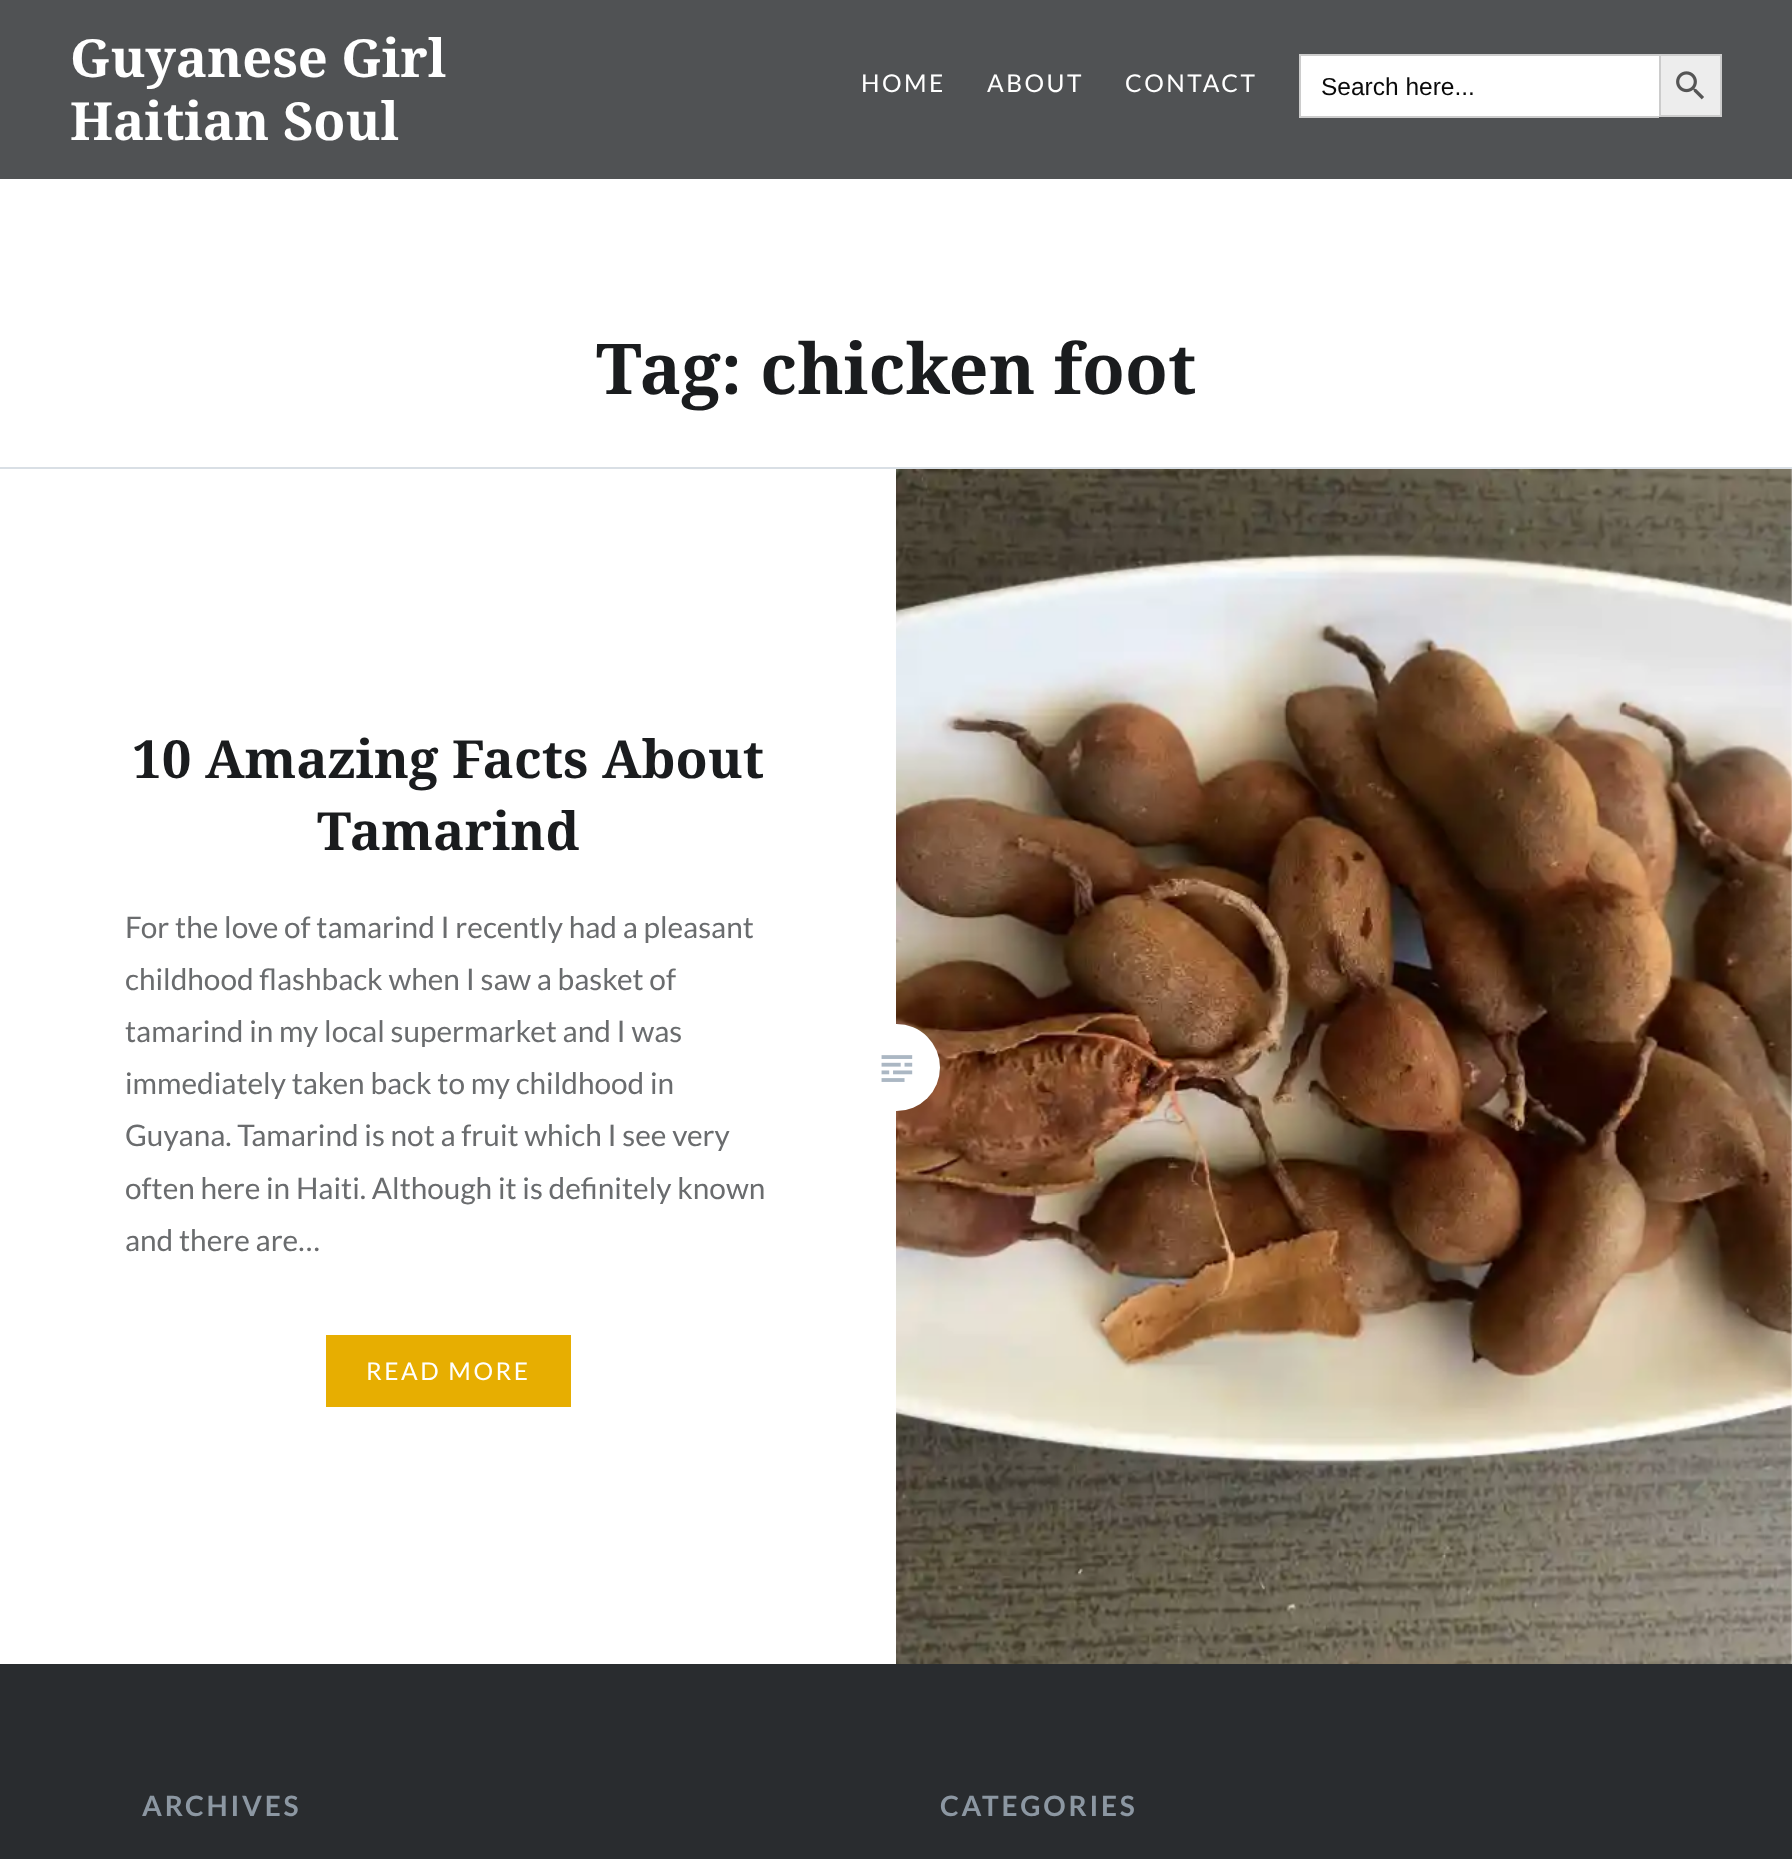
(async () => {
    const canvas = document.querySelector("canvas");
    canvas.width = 1792;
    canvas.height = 1859;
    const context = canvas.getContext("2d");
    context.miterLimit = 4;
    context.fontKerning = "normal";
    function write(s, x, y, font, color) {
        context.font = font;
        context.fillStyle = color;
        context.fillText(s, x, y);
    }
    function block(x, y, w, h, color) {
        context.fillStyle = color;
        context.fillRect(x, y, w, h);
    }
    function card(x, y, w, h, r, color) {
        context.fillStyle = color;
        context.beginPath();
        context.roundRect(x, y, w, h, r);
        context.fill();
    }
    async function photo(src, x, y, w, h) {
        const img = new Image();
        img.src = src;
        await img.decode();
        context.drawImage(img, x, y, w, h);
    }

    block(0, 0, 1792, 1859, "rgb(255, 255, 255)");
    block(0, 0, 1792, 179, "rgb(80, 82, 84)");
    write("Guyanese Girl", 70, 77, "bold 52.5px Noto Serif", "rgb(255, 255, 255)");
    write("Haitian Soul", 70, 140, "bold 52.5px Noto Serif", "rgb(255, 255, 255)");
    context.letterSpacing = "2.5px";
    write("HOME", 861, 92, "24.5px Lato", "rgb(255, 255, 255)");
    write("ABOUT", 987, 92, "24.5px Lato", "rgb(255, 255, 255)");
    write("CONTACT", 1125, 92, "24.5px Lato", "rgb(255, 255, 255)");
    block(1301, 56, 358, 60, "rgb(255, 255, 255)");
    block(1299, 54, 360, 2, "rgb(204, 204, 204)");
    block(1299, 116, 360, 2, "rgb(204, 204, 204)");
    block(1299, 54, 2, 63, "rgb(204, 204, 204)");
    context.letterSpacing = "0px";
    write("Search here...", 1321, 95, "24.5px Liberation Sans", "rgb(10, 10, 10)");
    context.fillStyle = "rgb(237, 237, 237)";
    context.beginPath();
    context.rect(1660, 55, 61, 61);
    context.fill();
    context.strokeStyle = "rgb(204, 204, 204)";
    context.lineWidth = 2;
    context.stroke();
    await photo("media/1.png", 1676, 71, 28, 29);
    block(0, 467, 1792, 2, "rgb(217, 223, 229)");
    write("Tag: chicken foot", 596, 394, "bold 70px Noto Serif", "rgb(26, 28, 30)");
    write("10 Amazing Facts About", 132, 778, "bold 52.5px Noto Serif", "rgb(26, 28, 30)");
    write("Tamarind", 317, 850, "bold 52.5px Noto Serif", "rgb(26, 28, 30)");
    write("For the love of tamarind I recently had a pleasant", 125, 938, "29.75px Lato", "rgb(106, 108, 110)");
    write("childhood flashback when I saw a basket of", 125, 990, "29.75px Lato", "rgb(106, 108, 110)");
    write("tamarind in my local supermarket and I was", 125, 1042, "29.75px Lato", "rgb(106, 108, 110)");
    write("immediately taken back to my childhood in", 125, 1094, "29.75px Lato", "rgb(106, 108, 110)");
    write("Guyana. Tamarind is not a fruit which I see very", 125, 1146, "29.75px Lato", "rgb(106, 108, 110)");
    write("often here in Haiti. Although it is definitely known", 125, 1199, "29.75px Lato", "rgb(106, 108, 110)");
    write("and there are…", 125, 1251, "29.75px Lato", "rgb(106, 108, 110)");
    block(326, 1335, 245, 72, "rgb(231, 174, 1)");
    context.letterSpacing = "2.5px";
    write("READ MORE", 366, 1380, "24.5px Lato", "rgb(255, 255, 255)");
    await photo("media/3.png", 896, 469, 896, 1195);
    card(852, 1024, 88, 87, 43.5, "rgb(255, 255, 255)");
    await photo("media/2.png", 881, 1055, 32, 27);
    block(0, 1664, 1792, 195, "rgb(41, 44, 47)");
    context.letterSpacing = "2.75px";
    write("ARCHIVES", 142, 1816, "bold 28px Lato", "rgb(140, 151, 162)");
    write("CATEGORIES", 940, 1816, "bold 28px Lato", "rgb(140, 151, 162)");
})();
